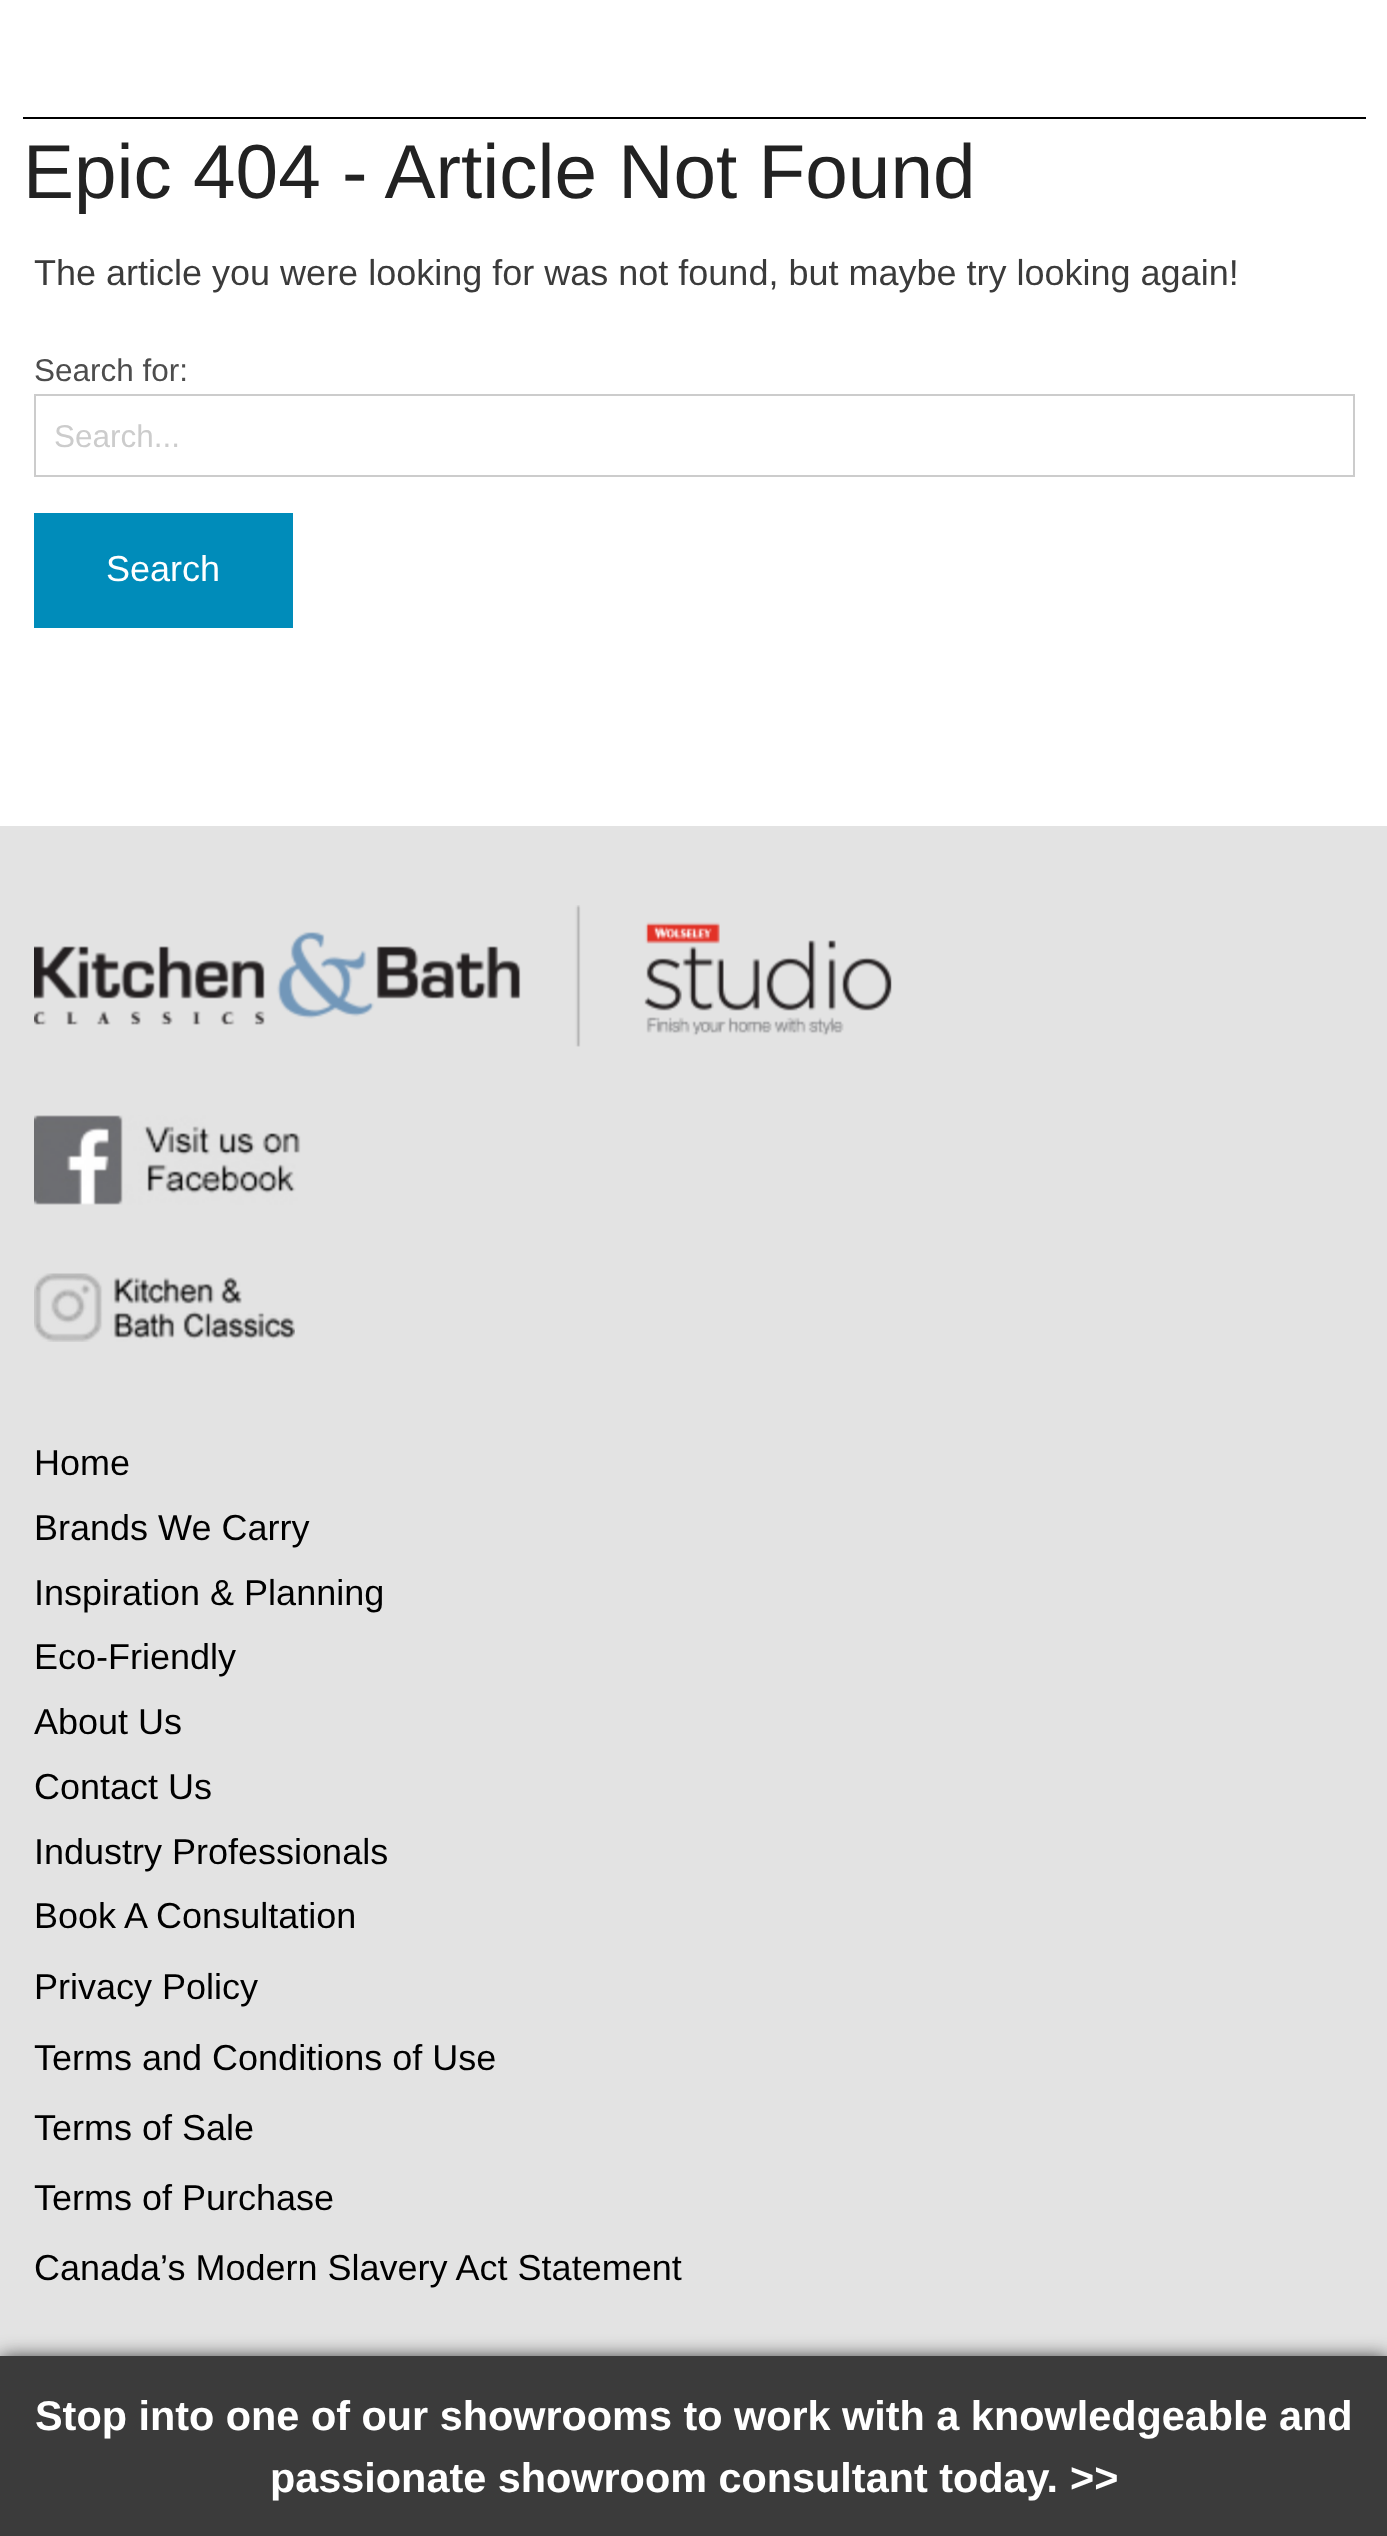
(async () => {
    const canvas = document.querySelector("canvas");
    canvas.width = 1387;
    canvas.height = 2536;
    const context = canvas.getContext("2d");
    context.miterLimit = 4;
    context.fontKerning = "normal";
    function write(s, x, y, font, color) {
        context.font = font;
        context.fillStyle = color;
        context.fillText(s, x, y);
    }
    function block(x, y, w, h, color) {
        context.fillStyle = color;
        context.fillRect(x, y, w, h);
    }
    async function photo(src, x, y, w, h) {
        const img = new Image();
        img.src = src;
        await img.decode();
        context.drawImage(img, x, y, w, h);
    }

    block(0, 0, 1387, 2536, "rgb(255, 255, 255)");
    block(23, 117, 1343, 2, "rgb(0, 0, 0)");
    write("Epic 404 - Article Not Found", 23, 198, "76.5px Liberation Sans", "rgb(34, 34, 34)");
    write("The article you were looking for was not found, but maybe try looking again!", 34, 285, "36px Liberation Sans", "rgb(59, 59, 59)");
    write("Search for:", 34, 381, "31.5px Liberation Sans", "rgb(77, 77, 77)");
    context.strokeStyle = "rgb(204, 204, 204)";
    context.lineWidth = 2;
    context.strokeRect(35, 395, 1319, 81);
    write("Search...", 54, 447, "31.5px Liberation Sans", "rgb(204, 204, 204)");
    block(34, 513, 259, 115, "rgb(0, 140, 186)");
    write("Search", 106, 581, "36px Liberation Sans", "rgb(255, 255, 255)");
    block(0, 826, 1387, 1530, "rgb(227, 227, 227)");
    await photo("media/1.png", 34, 905, 858, 142);
    await photo("media/2.png", 34, 1115, 267, 90);
    await photo("media/3.png", 34, 1273, 261, 69);
    write("Home", 34, 1475, "36px Liberation Sans", "rgb(0, 0, 0)");
    write("Brands We Carry", 34, 1540, "36px Liberation Sans", "rgb(0, 0, 0)");
    write("Inspiration & Planning", 34, 1605, "36px Liberation Sans", "rgb(0, 0, 0)");
    write("Eco-Friendly", 34, 1669, "36px Liberation Sans", "rgb(0, 0, 0)");
    write("About Us", 34, 1734, "36px Liberation Sans", "rgb(0, 0, 0)");
    write("Contact Us", 34, 1799, "36px Liberation Sans", "rgb(0, 0, 0)");
    write("Industry Professionals", 34, 1864, "36px Liberation Sans", "rgb(0, 0, 0)");
    write("Book A Consultation", 34, 1928, "36px Liberation Sans", "rgb(0, 0, 0)");
    write("Privacy Policy", 34, 1999, "36px Liberation Sans", "rgb(0, 0, 0)");
    write("Terms and Conditions of Use", 34, 2070, "36px Liberation Sans", "rgb(0, 0, 0)");
    write("Terms of Sale", 34, 2140, "36px Liberation Sans", "rgb(0, 0, 0)");
    write("Terms of Purchase", 34, 2210, "36px Liberation Sans", "rgb(0, 0, 0)");
    write("Canada’s Modern Slavery Act Statement", 34, 2280, "36px Liberation Sans", "rgb(0, 0, 0)");
    context.fillStyle = "rgb(38, 38, 38)";
    context.filter = "blur(10px)";
    context.beginPath();
    context.rect(0, 2358, 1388, 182);
    context.fill();
    context.filter = "none";
    block(0, 2356, 1387, 180, "rgb(59, 59, 59)");
    write("Stop into one of our showrooms to work with a knowledgeable and", 35, 2430, "bold 41.4px Liberation Sans", "rgb(255, 255, 255)");
    write("passionate showroom consultant today.", 270, 2492, "bold 41.4px Liberation Sans", "rgb(255, 255, 255)");
    write(">>", 1070, 2492, "bold 41.4px Liberation Sans", "rgb(255, 255, 255)");
})();
